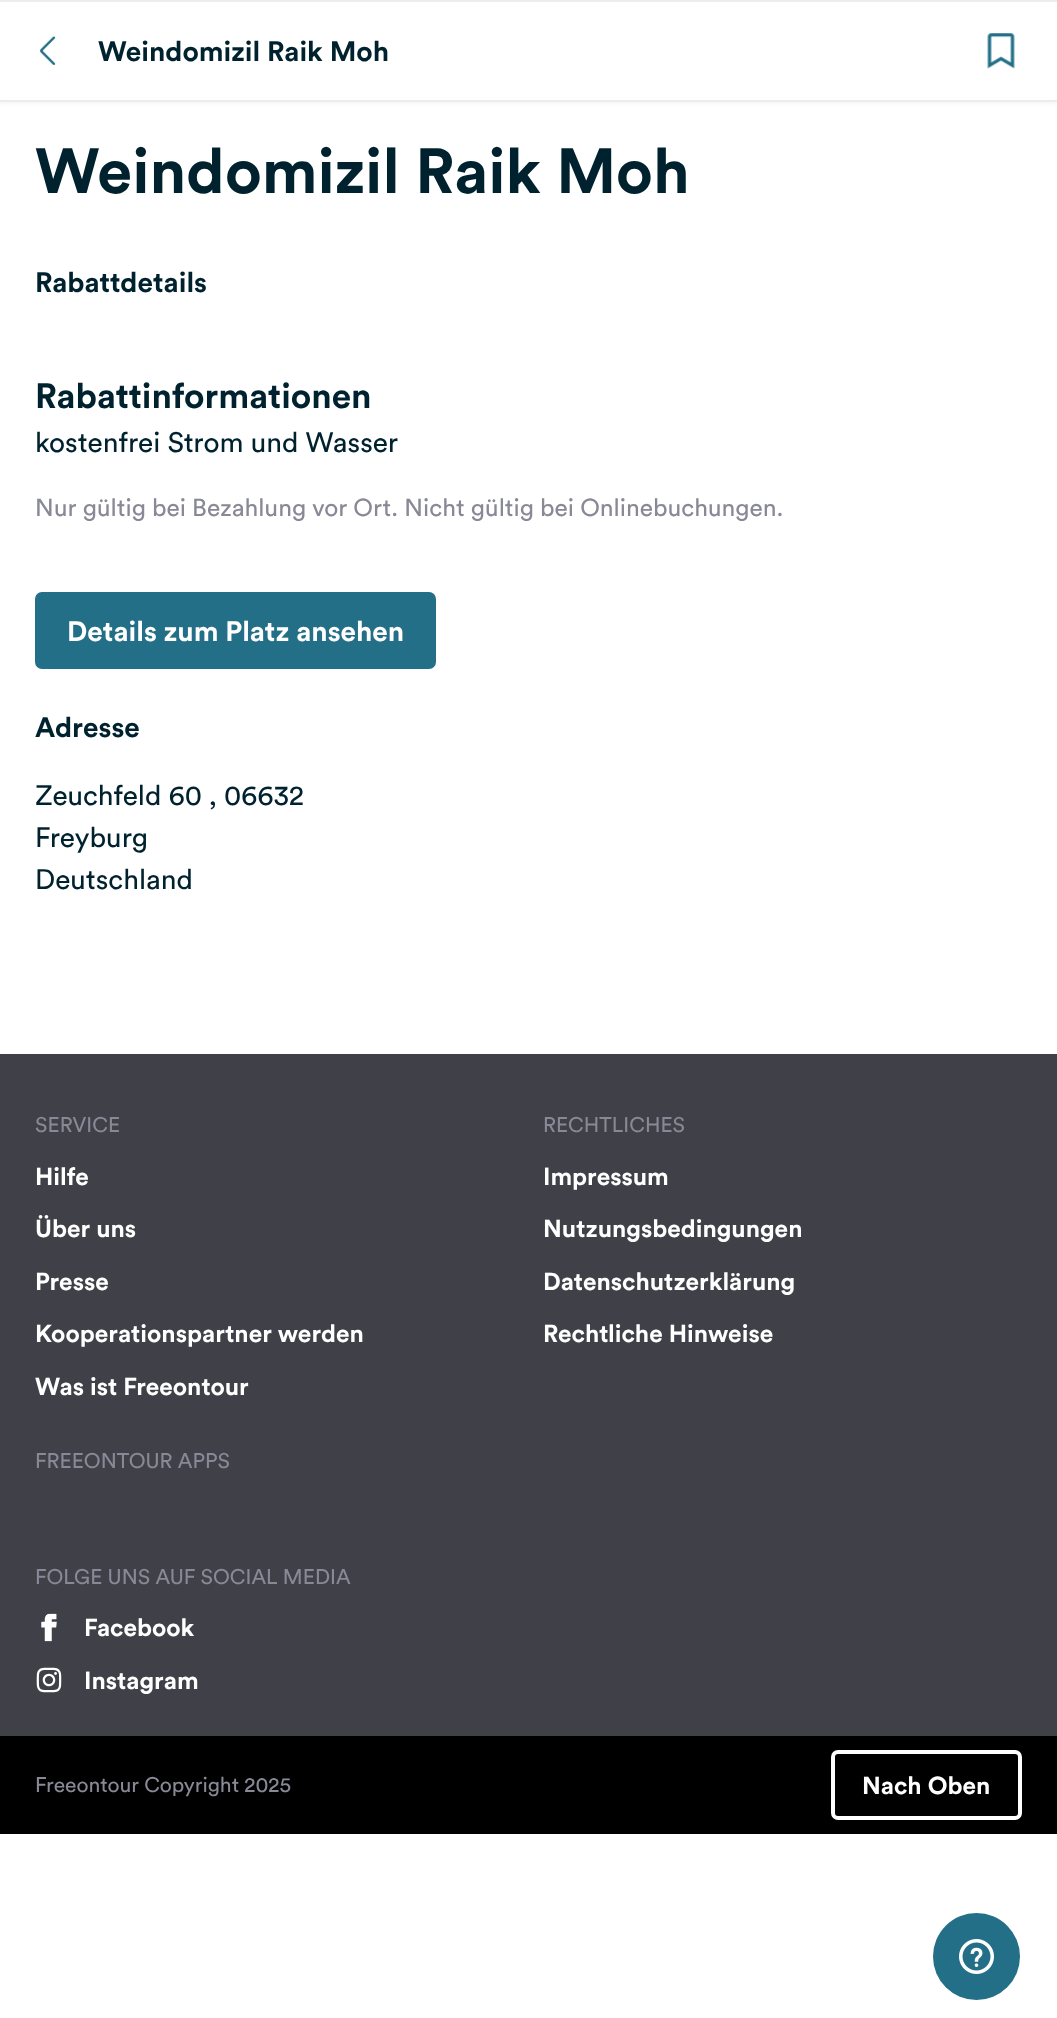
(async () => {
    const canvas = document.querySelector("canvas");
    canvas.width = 1057;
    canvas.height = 2018;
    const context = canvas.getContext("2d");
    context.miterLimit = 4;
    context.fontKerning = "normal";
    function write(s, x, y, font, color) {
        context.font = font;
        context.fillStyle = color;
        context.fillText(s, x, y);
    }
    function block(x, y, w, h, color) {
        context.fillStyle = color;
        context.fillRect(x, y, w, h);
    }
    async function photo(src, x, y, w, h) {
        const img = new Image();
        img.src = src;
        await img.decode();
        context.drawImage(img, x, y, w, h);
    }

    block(0, 0, 1057, 2018, "rgb(255, 255, 255)");
    context.fillStyle = "rgba(0, 0, 0, 0.05)";
    context.filter = "blur(2px)";
    context.beginPath();
    context.rect(0, 2, 1057, 101);
    context.fill();
    context.filter = "none";
    block(0, 2, 1057, 98, "rgb(255, 255, 255)");
    block(0, 0, 1057, 2, "rgb(236, 236, 236)");
    block(0, 100, 1057, 2, "rgb(236, 236, 236)");
    await photo("media/1.png", 40, 36, 16, 29);
    write("Weindomizil Raik Moh", 98, 61, "bold 28px Circular", "rgb(0, 34, 47)");
    await photo("media/2.png", 987, 33, 28, 36);
    write("Weindomizil Raik Moh", 35, 193, "bold 63px Circular", "rgb(0, 34, 47)");
    write("Rabattdetails", 35, 292, "bold 28px Circular", "rgb(0, 34, 47)");
    write("Rabattinformationen", 35, 408, "bold 35px Circular", "rgb(0, 34, 47)");
    write("kostenfrei Strom und Wasser", 35, 452, "28px Circular", "rgb(0, 34, 47)");
    write("Nur gültig bei Bezahlung vor Ort. Nicht gültig bei Onlinebuchungen.", 35, 516, "24.5px Circular", "rgb(136, 136, 150)");
    context.fillStyle = "rgb(35, 111, 136)";
    context.beginPath();
    context.roundRect(37, 594, 397, 73, 5);
    context.fill();
    context.strokeStyle = "rgb(35, 111, 136)";
    context.lineWidth = 4;
    context.stroke();
    write("Details zum Platz ansehen", 67, 641, "bold 28px Circular", "rgb(255, 255, 255)");
    write("Adresse", 35, 737, "bold 28px Circular", "rgb(0, 34, 47)");
    write("Zeuchfeld 60 , 06632", 35, 805, "28px Circular", "rgb(0, 34, 47)");
    write("Freyburg", 35, 847, "28px Circular", "rgb(0, 34, 47)");
    write("Deutschland", 35, 889, "28px Circular", "rgb(0, 34, 47)");
    block(0, 1054, 1057, 682, "rgb(64, 64, 72)");
    write("SERVICE", 35, 1132, "21px Circular", "rgb(136, 136, 150)");
    write("Hilfe", 35, 1185, "bold 24.5px Circular", "rgb(255, 255, 255)");
    write("Über uns", 35, 1237, "bold 24.5px Circular", "rgb(255, 255, 255)");
    write("Presse", 35, 1290, "bold 24.5px Circular", "rgb(255, 255, 255)");
    write("Kooperationspartner werden", 35, 1342, "bold 24.5px Circular", "rgb(255, 255, 255)");
    write("Was ist Freeontour", 35, 1395, "bold 24.5px Circular", "rgb(255, 255, 255)");
    write("RECHTLICHES", 543, 1132, "21px Circular", "rgb(136, 136, 150)");
    write("Impressum", 543, 1185, "bold 24.5px Circular", "rgb(255, 255, 255)");
    write("Nutzungsbedingungen", 543, 1237, "bold 24.5px Circular", "rgb(255, 255, 255)");
    write("Datenschutzerklärung", 543, 1290, "bold 24.5px Circular", "rgb(255, 255, 255)");
    write("Rechtliche Hinweise", 543, 1342, "bold 24.5px Circular", "rgb(255, 255, 255)");
    write("FREEONTOUR APPS", 35, 1468, "21px Circular", "rgb(136, 136, 150)");
    write("FOLGE UNS AUF SOCIAL MEDIA", 35, 1584, "21px Circular", "rgb(136, 136, 150)");
    await photo("media/3.png", 41, 1613, 16, 29);
    write("Facebook", 84, 1636, "bold 24.5px Circular", "rgb(255, 255, 255)");
    await photo("media/4.png", 36, 1667, 26, 26);
    write("Instagram", 84, 1689, "bold 24.5px Circular", "rgb(255, 255, 255)");
    block(0, 1736, 1057, 98, "rgb(0, 0, 0)");
    write("Freeontour Copyright 2025", 35, 1792, "21px Circular", "rgb(136, 136, 150)");
    context.beginPath();
    context.roundRect(833, 1752, 187, 66, 5);
    context.strokeStyle = "rgb(255, 255, 255)";
    context.stroke();
    write("Nach Oben", 862, 1794, "bold 24.5px Circular", "rgb(255, 255, 255)");
    context.fillStyle = "rgb(35, 111, 136)";
    context.beginPath();
    context.arc(976.5, 1956.5, 43.5, 0, Math.PI * 2);
    context.fill();
    await photo("media/5.png", 959, 1939, 35, 35);
})();
